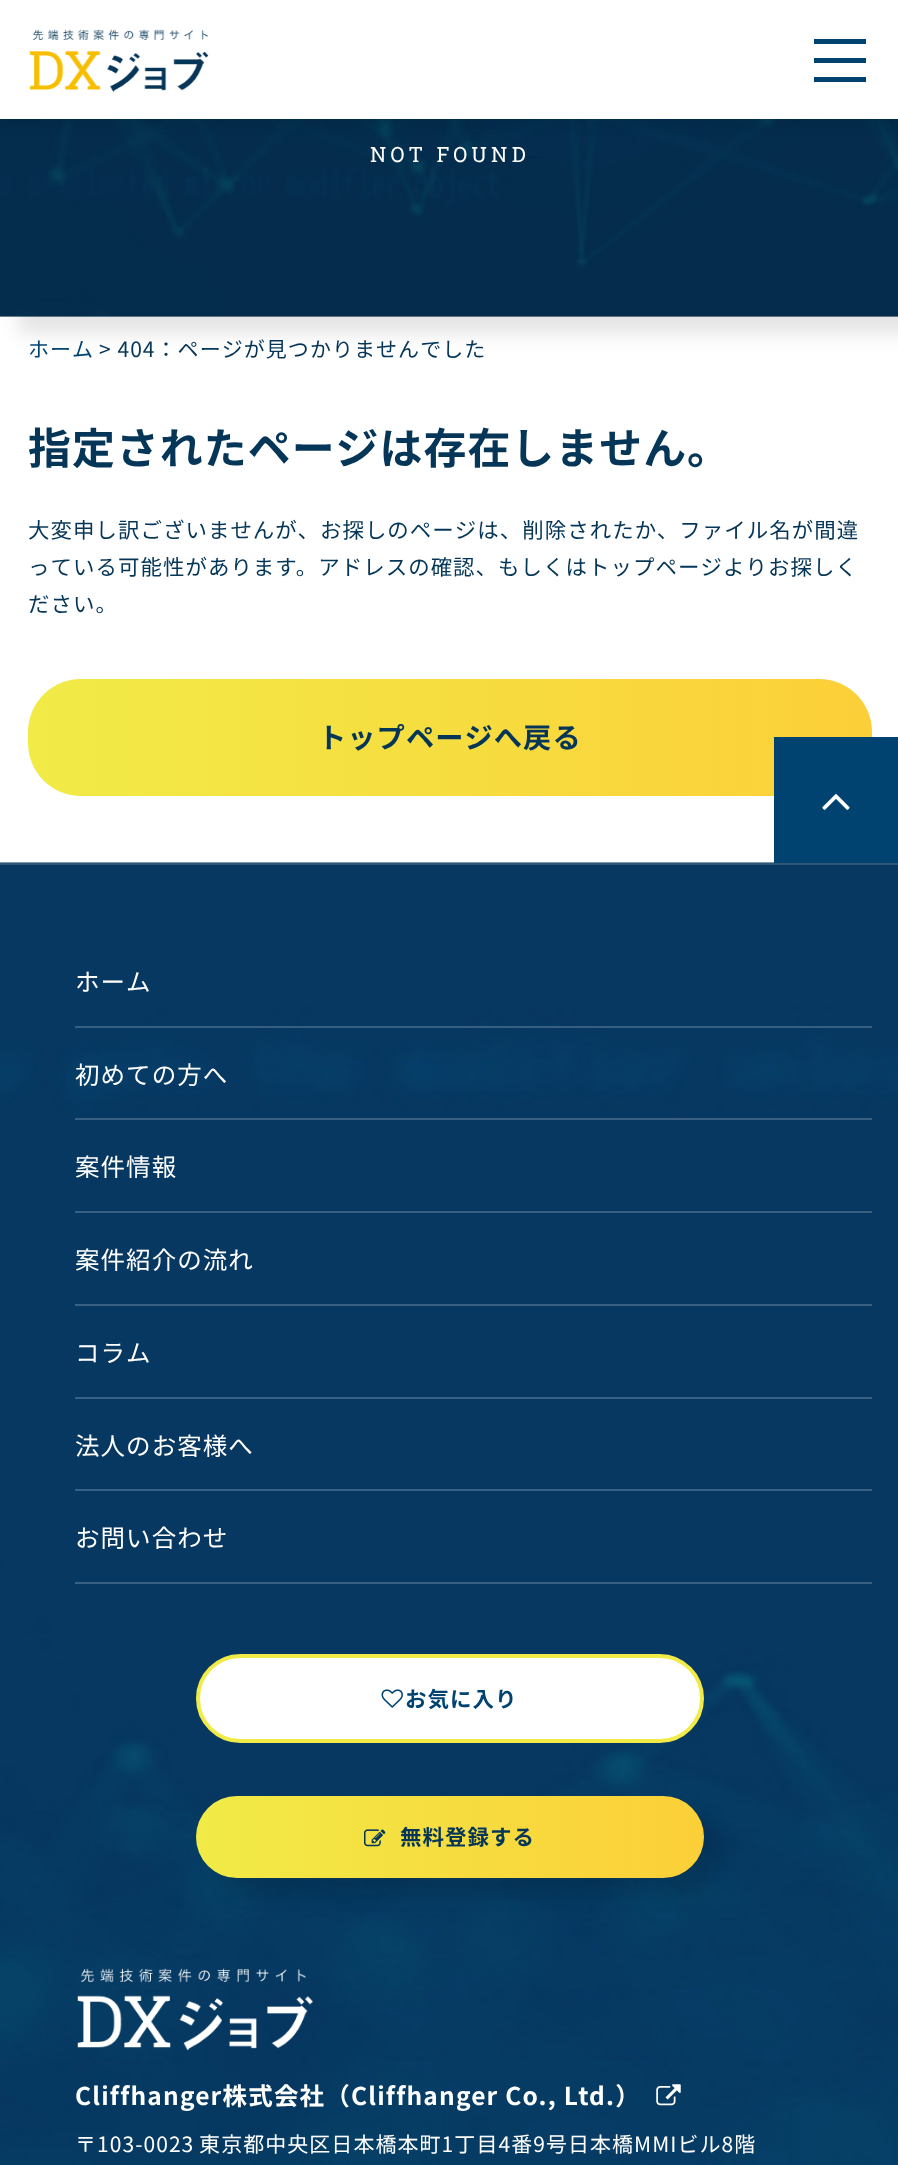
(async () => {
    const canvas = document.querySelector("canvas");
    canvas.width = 898;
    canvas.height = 2165;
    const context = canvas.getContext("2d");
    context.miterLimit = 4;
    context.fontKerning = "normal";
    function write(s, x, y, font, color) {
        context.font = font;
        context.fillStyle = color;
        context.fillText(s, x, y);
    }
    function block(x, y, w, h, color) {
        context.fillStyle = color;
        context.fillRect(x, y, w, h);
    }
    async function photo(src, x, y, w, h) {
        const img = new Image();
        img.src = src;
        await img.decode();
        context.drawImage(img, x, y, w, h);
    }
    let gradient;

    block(0, 0, 898, 2165, "rgb(255, 255, 255)");
    context.fillStyle = "rgba(0, 0, 0, 0.1)";
    context.filter = "blur(9px)";
    context.beginPath();
    context.rect(18, -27, 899, 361);
    context.fill();
    context.filter = "none";
    await photo("media/2.png", 0, 119, 898, 198);
    block(0, 119, 898, 198, "rgba(0, 0, 0, 0.2)");
    context.fillStyle = "rgba(0, 0, 0, 0.05)";
    context.filter = "blur(4.5px)";
    context.beginPath();
    context.rect(0, 9, 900, 119);
    context.fill();
    context.filter = "none";
    block(0, 0, 898, 119, "rgb(255, 255, 255)");
    await photo("media/1.png", 29, 29, 180, 63);
    block(814, 39, 52, 5, "rgb(0, 67, 113)");
    block(814, 58, 52, 5, "rgb(0, 67, 113)");
    block(814, 77, 52, 5, "rgb(0, 67, 113)");
    context.letterSpacing = "4.25px";
    write("NOT FOUND", 370, 162, "21px Roboto Slab", "rgb(255, 255, 255)");
    context.letterSpacing = "1.05px";
    write("ホーム", 28, 357, "21px Noto Sans JP", "rgb(0, 67, 113)");
    write("> 404：ページが見つかりませんでした", 99, 357, "21px Noto Sans JP", "rgb(5, 54, 88)");
    write("指定されたページは存在しません。", 28, 464, "bold 42.9px Noto Sans JP", "rgb(5, 54, 88)");
    write("大変申し訳ございませんが、お探しのページは、削除されたか、ファイル名が間違", 28, 538, "21.45px Noto Sans JP", "rgb(5, 54, 88)");
    write("っている可能性があります。アドレスの確認、もしくはトップページよりお探しく", 28, 575, "21.45px Noto Sans JP", "rgb(5, 54, 88)");
    write("ださい。", 28, 612, "21.45px Noto Sans JP", "rgb(5, 54, 88)");
    gradient = context.createLinearGradient(28, 738, 872, 738);
    gradient.addColorStop(0, "rgb(241, 235, 71)");
    gradient.addColorStop(1, "rgb(252, 207, 56)");
    context.fillStyle = gradient;
    context.beginPath();
    context.roundRect(28, 679, 844, 117, 53);
    context.fill();
    write("トップページへ戻る", 318, 748, "bold 28.25px Noto Sans JP", "rgb(5, 54, 88)");
    await photo("media/3.png", 0, 862, 898, 1303);
    block(774, 737, 124, 126, "rgb(0, 67, 113)");
    await photo("media/4.png", 822, 794, 28, 16);
    block(0, 863, 898, 2, "rgb(46, 86, 118)");
    block(75, 1026, 797, 2, "rgba(255, 255, 255, 0.2)");
    write("ホーム", 75, 991, "24.5px Noto Sans JP", "rgb(255, 255, 255)");
    block(75, 1118, 797, 2, "rgb(57, 96, 129)");
    write("初めての方へ", 75, 1084, "24.5px Noto Sans JP", "rgb(255, 255, 255)");
    block(75, 1211, 797, 2, "rgb(57, 96, 129)");
    write("案件情報", 75, 1176, "24.5px Noto Sans JP", "rgb(255, 255, 255)");
    block(75, 1304, 797, 2, "rgb(57, 96, 129)");
    write("案件紹介の流れ", 75, 1269, "24.5px Noto Sans JP", "rgb(255, 255, 255)");
    block(75, 1397, 797, 2, "rgb(57, 96, 129)");
    write("コラム", 75, 1362, "24.5px Noto Sans JP", "rgb(255, 255, 255)");
    block(75, 1489, 797, 2, "rgb(57, 96, 129)");
    write("法人のお客様へ", 75, 1455, "24.5px Noto Sans JP", "rgb(255, 255, 255)");
    block(75, 1582, 797, 2, "rgb(57, 96, 129)");
    write("お問い合わせ", 75, 1547, "24.5px Noto Sans JP", "rgb(255, 255, 255)");
    context.beginPath();
    context.roundRect(198, 1656, 504, 85, 42.5);
    context.fill();
    context.strokeStyle = "rgb(241, 235, 71)";
    context.lineWidth = 4;
    context.stroke();
    await photo("media/5.png", 381, 1689, 22, 19);
    write("お気に入り", 405, 1707, "bold 21.45px Noto Sans JP", "rgb(0, 67, 113)");
    context.fillStyle = "rgba(0, 0, 0, 0.1)";
    context.filter = "blur(9px)";
    context.beginPath();
    context.roundRect(214, 1813, 507, 82, 41);
    context.fill();
    context.filter = "none";
    gradient = context.createLinearGradient(196, 1837, 704, 1837);
    gradient.addColorStop(0, "rgb(241, 235, 71)");
    gradient.addColorStop(1, "rgb(252, 207, 56)");
    context.fillStyle = gradient;
    context.beginPath();
    context.roundRect(196, 1796, 508, 82, 41);
    context.fill();
    await photo("media/6.png", 364, 1829, 22, 18);
    write("無料登録する", 400, 1845, "bold 21.45px Noto Sans JP", "rgb(5, 54, 88)");
    await photo("media/7.png", 77, 1968, 236, 83);
    context.letterSpacing = "1.2px";
    write("Cliffhanger株式会社（Cliffhanger Co., Ltd.）", 75, 2105, "bold 24.5px Noto Sans JP", "rgb(255, 255, 255)");
    await photo("media/8.png", 656, 2084, 25, 22);
    context.letterSpacing = "1.05px";
    context.wordSpacing = "-1px";
    write("〒103-0023 東京都中央区日本橋本町1丁目4番9号日本橋MMIビル8階", 75, 2152, "21px Noto Sans JP", "rgb(255, 255, 255)");
})();
